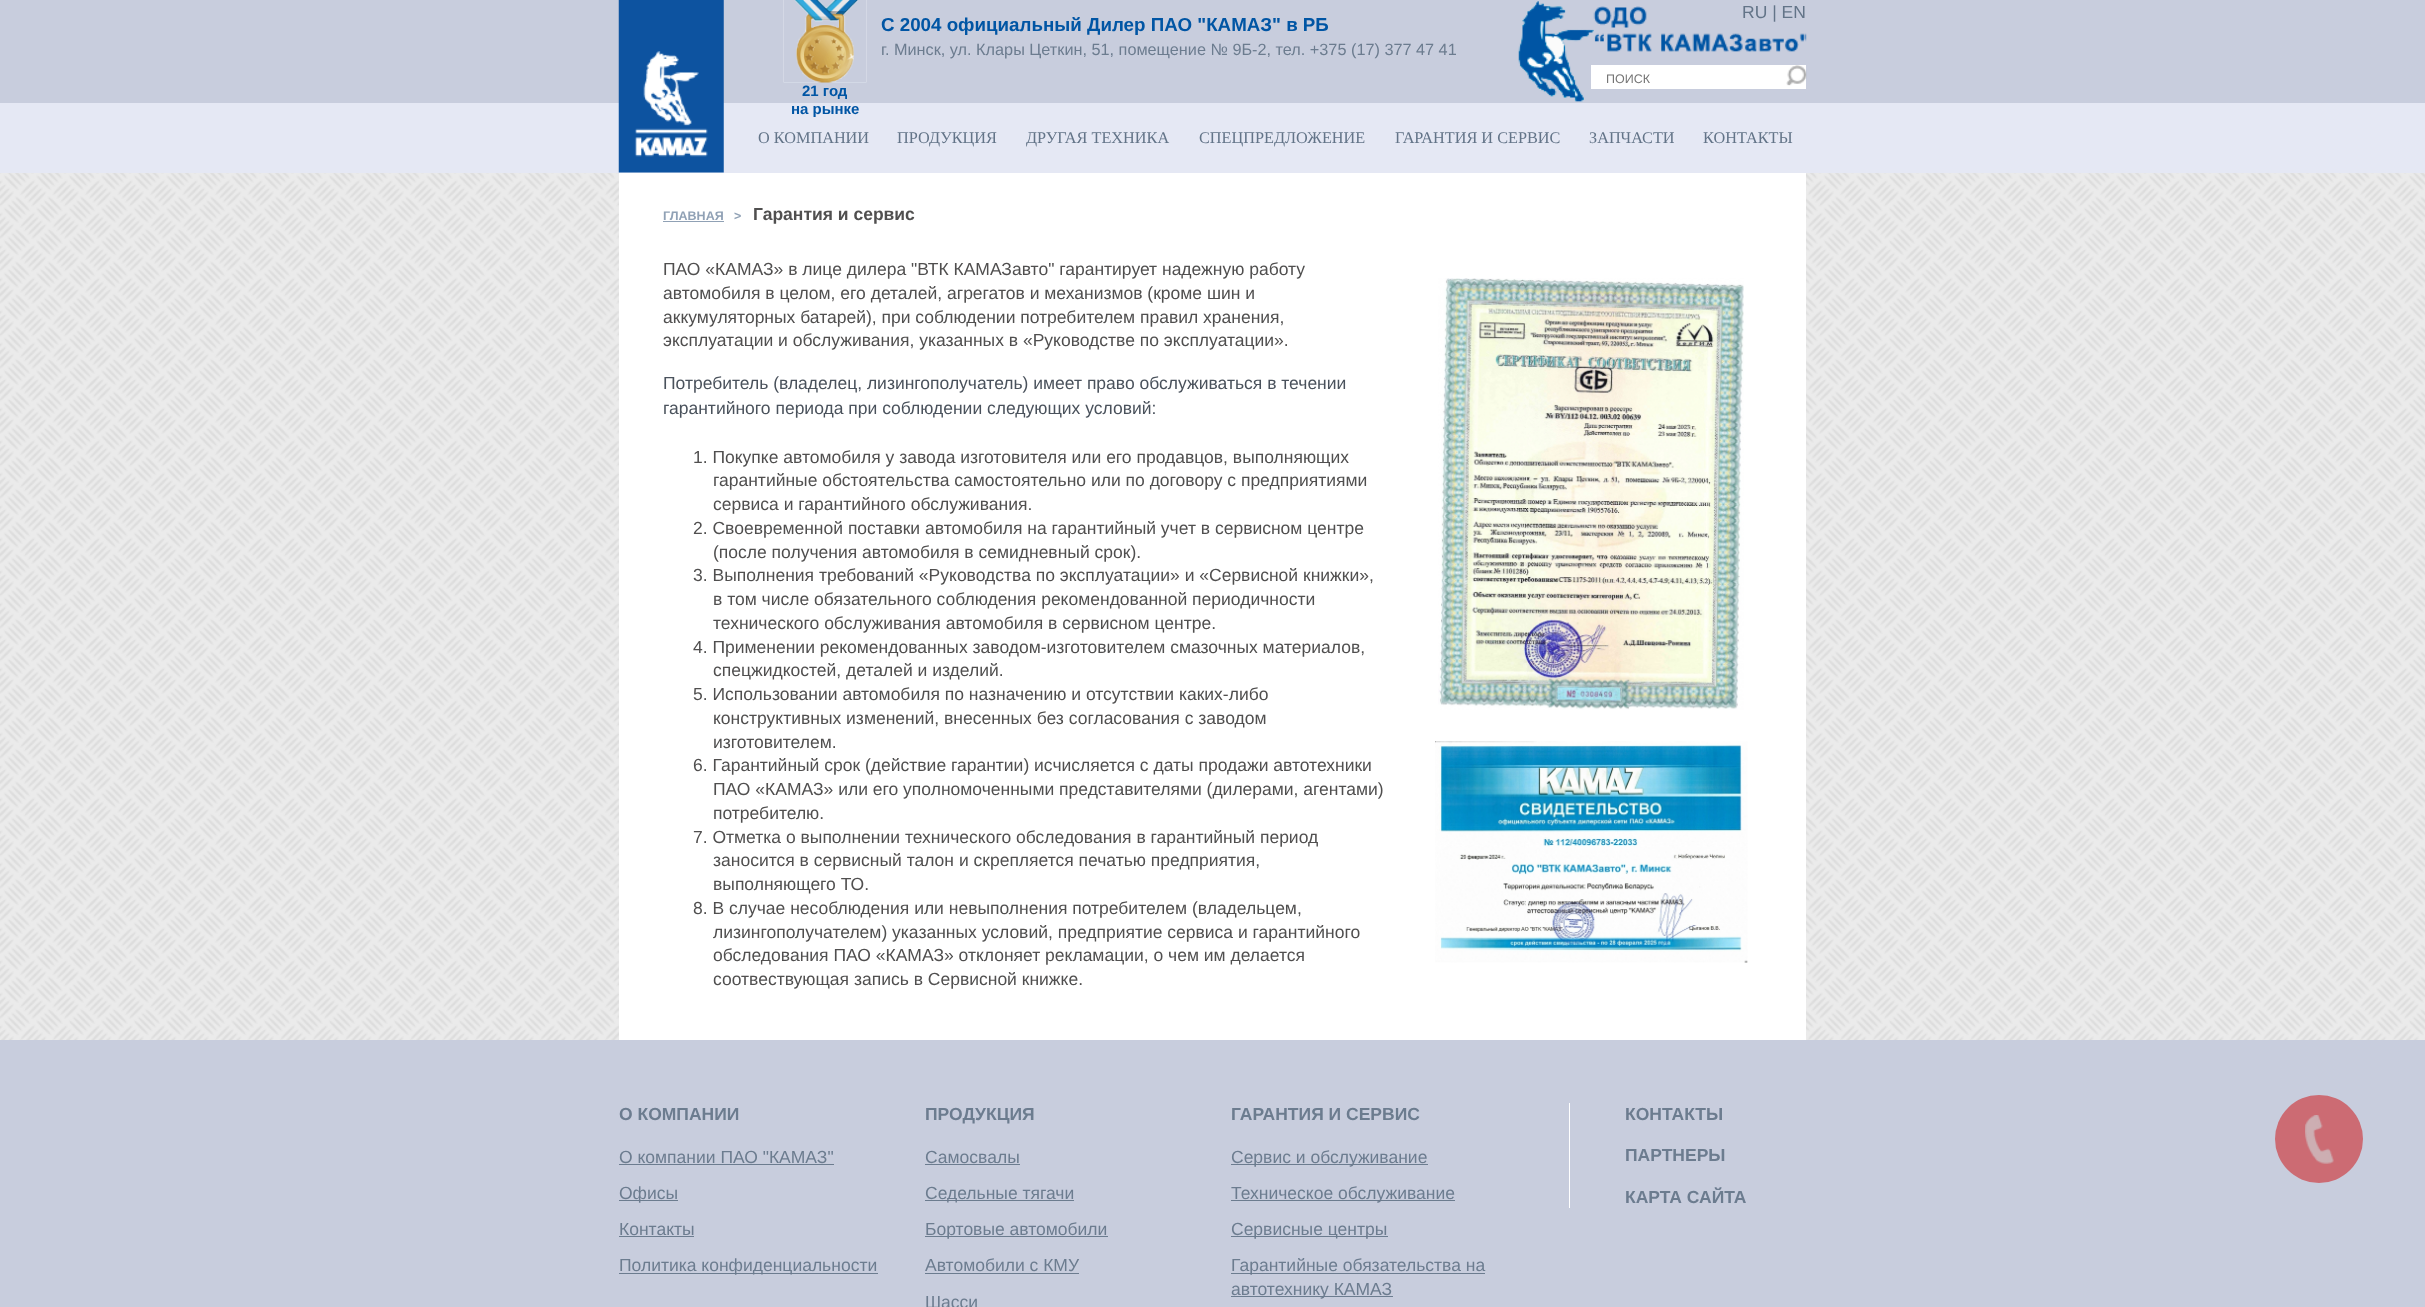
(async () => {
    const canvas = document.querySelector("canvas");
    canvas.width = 2425;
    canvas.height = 1307;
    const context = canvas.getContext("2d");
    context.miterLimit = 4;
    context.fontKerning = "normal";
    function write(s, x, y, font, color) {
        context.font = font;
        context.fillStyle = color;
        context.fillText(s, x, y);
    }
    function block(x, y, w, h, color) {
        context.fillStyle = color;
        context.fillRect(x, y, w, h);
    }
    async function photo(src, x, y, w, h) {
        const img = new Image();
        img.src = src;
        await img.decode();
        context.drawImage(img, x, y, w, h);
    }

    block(0, 0, 2425, 1307, "rgb(255, 255, 255)");
    await photo("media/1.png", 0, 173, 2425, 867);
    block(0, 0, 2425, 103, "rgb(200, 205, 221)");
    block(0, 103, 2425, 70, "rgb(229, 232, 244)");
    await photo("media/2.png", 618, 0, 106, 173);
    write("С 2004 официальный Дилер ПАО \"КАМАЗ\" в РБ", 881, 31, "bold 18.75px Liberation Sans", "rgb(0, 85, 164)");
    write("г. Минск, ул. Клары Цеткин, 51, помещение № 9Б-2, тел. +375 (17) 377 47 41", 881, 55, "16.25px Liberation Sans", "rgb(108, 124, 143)");
    await photo("media/3.png", 783, 0, 84, 83);
    await photo("media/4.png", 784, 0, 82, 83);
    write("21 год", 802, 96, "bold 15px Liberation Sans", "rgb(0, 85, 164)");
    write("на рынке", 791, 114, "bold 15px Liberation Sans", "rgb(0, 85, 164)");
    await photo("media/5.png", 1518, 1, 289, 101);
    write("RU | EN", 1742, 18, "17.5px Liberation Sans", "rgb(99, 116, 136)");
    block(1591, 65, 215, 24, "rgb(255, 255, 255)");
    write("ПОИСК", 1606, 83, "12.5px Liberation Sans", "rgb(117, 117, 117)");
    await photo("media/6.png", 1786, 65, 21, 21);
    write("О КОМПАНИИ", 758, 143, "16.25px Liberation Serif", "rgb(99, 116, 136)");
    write("ПРОДУКЦИЯ", 897, 143, "16.25px Liberation Serif", "rgb(99, 116, 136)");
    write("ДРУГАЯ ТЕХНИКА", 1026, 143, "16.25px Liberation Serif", "rgb(99, 116, 136)");
    write("СПЕЦПРЕДЛОЖЕНИЕ", 1199, 143, "16.25px Liberation Serif", "rgb(99, 116, 136)");
    write("ГАРАНТИЯ И СЕРВИС", 1395, 143, "16.25px Liberation Serif", "rgb(99, 116, 136)");
    write("ЗАПЧАСТИ", 1589, 143, "16.25px Liberation Serif", "rgb(99, 116, 136)");
    write("КОНТАКТЫ", 1703, 143, "16.25px Liberation Serif", "rgb(99, 116, 136)");
    block(619, 173, 1187, 867, "rgb(255, 255, 255)");
    write("ГЛАВНАЯ", 663, 220, "bold 12.5px Liberation Sans", "rgb(144, 161, 181)");
    block(663, 221, 61, 1, "rgb(144, 161, 181)");
    write(">", 734, 220, "bold 12.5px Liberation Sans", "rgb(144, 161, 181)");
    write("Гарантия и сервис", 753, 220, "bold 17.5px Liberation Sans", "rgb(80, 79, 79)");
    write("ПАО «КАМАЗ» в лице дилера \"ВТК КАМАЗавто\" гарантирует надежную работу", 663, 275, "17.5px Liberation Sans", "rgb(80, 79, 79)");
    write("автомобиля в целом, его деталей, агрегатов и механизмов (кроме шин и", 663, 299, "17.5px Liberation Sans", "rgb(80, 79, 79)");
    write("аккумуляторных батарей), при соблюдении потребителем правил хранения,", 663, 323, "17.5px Liberation Sans", "rgb(80, 79, 79)");
    write("эксплуатации и обслуживания, указанных в «Руководстве по эксплуатации».", 663, 346, "17.5px Liberation Sans", "rgb(80, 79, 79)");
    write("Потребитель (владелец, лизингополучатель) имеет право обслуживаться в течении", 663, 389, "17.5px Liberation Sans", "rgb(74, 82, 92)");
    write("гарантийного периода при соблюдении следующих условий:", 663, 414, "17.5px Liberation Sans", "rgb(74, 82, 92)");
    write("1. Покупке автомобиля у завода изготовителя или его продавцов, выполняющих", 693, 463, "17.5px Liberation Sans", "rgb(80, 79, 79)");
    write("гарантийные обстоятельства самостоятельно или по договору с предприятиями", 713, 486, "17.5px Liberation Sans", "rgb(80, 79, 79)");
    write("сервиса и гарантийного обслуживания.", 713, 510, "17.5px Liberation Sans", "rgb(80, 79, 79)");
    write("2. Своевременной поставки автомобиля на гарантийный учет в сервисном центре", 693, 534, "17.5px Liberation Sans", "rgb(80, 79, 79)");
    write("(после получения автомобиля в семидневный срок).", 713, 558, "17.5px Liberation Sans", "rgb(80, 79, 79)");
    write("3. Выполнения требований «Руководства по эксплуатации» и «Сервисной книжки»,", 693, 581, "17.5px Liberation Sans", "rgb(80, 79, 79)");
    write("в том числе обязательного соблюдения рекомендованной периодичности", 713, 605, "17.5px Liberation Sans", "rgb(80, 79, 79)");
    write("технического обслуживания автомобиля в сервисном центре.", 713, 629, "17.5px Liberation Sans", "rgb(80, 79, 79)");
    write("4. Применении рекомендованных заводом-изготовителем смазочных материалов,", 693, 653, "17.5px Liberation Sans", "rgb(80, 79, 79)");
    write("спецжидкостей, деталей и изделий.", 713, 676, "17.5px Liberation Sans", "rgb(80, 79, 79)");
    write("5. Использовании автомобиля по назначению и отсутствии каких-либо", 693, 700, "17.5px Liberation Sans", "rgb(80, 79, 79)");
    write("конструктивных изменений, внесенных без согласования с заводом", 713, 724, "17.5px Liberation Sans", "rgb(80, 79, 79)");
    write("изготовителем.", 713, 748, "17.5px Liberation Sans", "rgb(80, 79, 79)");
    write("6. Гарантийный срок (действие гарантии) исчисляется с даты продажи автотехники", 693, 771, "17.5px Liberation Sans", "rgb(80, 79, 79)");
    write("ПАО «КАМАЗ» или его уполномоченными представителями (дилерами, агентами)", 713, 795, "17.5px Liberation Sans", "rgb(80, 79, 79)");
    write("потребителю.", 713, 819, "17.5px Liberation Sans", "rgb(80, 79, 79)");
    write("7. Отметка о выполнении технического обследования в гарантийный период", 693, 843, "17.5px Liberation Sans", "rgb(80, 79, 79)");
    write("заносится в сервисный талон и скрепляется печатью предприятия,", 713, 866, "17.5px Liberation Sans", "rgb(80, 79, 79)");
    write("выполняющего ТО.", 713, 890, "17.5px Liberation Sans", "rgb(80, 79, 79)");
    write("8. В случае несоблюдения или невыполнения потребителем (владельцем,", 693, 914, "17.5px Liberation Sans", "rgb(80, 79, 79)");
    write("лизингополучателем) указанных условий, предприятие сервиса и гарантийного", 713, 938, "17.5px Liberation Sans", "rgb(80, 79, 79)");
    write("обследования ПАО «КАМАЗ» отклоняет рекламации, о чем им делается", 713, 961, "17.5px Liberation Sans", "rgb(80, 79, 79)");
    write("соотвествующая запись в Сервисной книжке.", 713, 985, "17.5px Liberation Sans", "rgb(80, 79, 79)");
    await photo("media/7.png", 1438, 278, 306, 432);
    await photo("media/8.png", 1435, 741, 313, 222);
    block(0, 1040, 2425, 267, "rgb(200, 205, 221)");
    write("О КОМПАНИИ", 619, 1120, "bold 17.5px Liberation Sans", "rgb(108, 124, 143)");
    write("О компании ПАО \"КАМАЗ\"", 619, 1163, "17.5px Liberation Sans", "rgb(108, 124, 143)");
    block(619, 1164, 215, 1, "rgb(108, 124, 143)");
    block(619, 1200, 59, 1, "rgb(108, 124, 143)");
    write("Офисы", 619, 1199, "17.5px Liberation Sans", "rgb(108, 124, 143)");
    write("Контакты", 619, 1235, "17.5px Liberation Sans", "rgb(108, 124, 143)");
    block(619, 1236, 75, 1, "rgb(108, 124, 143)");
    block(619, 1273, 259, 1, "rgb(108, 124, 143)");
    write("Политика конфиденциальности", 619, 1271, "17.5px Liberation Sans", "rgb(108, 124, 143)");
    write("ПРОДУКЦИЯ", 925, 1120, "bold 17.5px Liberation Sans", "rgb(108, 124, 143)");
    write("Самосвалы", 925, 1163, "17.5px Liberation Sans", "rgb(108, 124, 143)");
    block(925, 1164, 95, 1, "rgb(108, 124, 143)");
    block(925, 1200, 149, 1, "rgb(108, 124, 143)");
    write("Седельные тягачи", 925, 1199, "17.5px Liberation Sans", "rgb(108, 124, 143)");
    block(925, 1236, 183, 1, "rgb(108, 124, 143)");
    write("Бортовые автомобили", 925, 1235, "17.5px Liberation Sans", "rgb(108, 124, 143)");
    write("Автомобили с КМУ", 925, 1271, "17.5px Liberation Sans", "rgb(108, 124, 143)");
    block(925, 1273, 154, 1, "rgb(108, 124, 143)");
    write("Шасси", 925, 1308, "17.5px Liberation Sans", "rgb(108, 124, 143)");
    write("ГАРАНТИЯ И СЕРВИС", 1231, 1120, "bold 17.5px Liberation Sans", "rgb(108, 124, 143)");
    block(1231, 1164, 197, 1, "rgb(108, 124, 143)");
    write("Сервис и обслуживание", 1231, 1163, "17.5px Liberation Sans", "rgb(108, 124, 143)");
    block(1231, 1200, 224, 1, "rgb(108, 124, 143)");
    write("Техническое обслуживание", 1231, 1199, "17.5px Liberation Sans", "rgb(108, 124, 143)");
    block(1231, 1236, 157, 1, "rgb(108, 124, 143)");
    write("Сервисные центры", 1231, 1235, "17.5px Liberation Sans", "rgb(108, 124, 143)");
    block(1231, 1273, 254, 1, "rgb(108, 124, 143)");
    write("Гарантийные обязательства на", 1231, 1271, "17.5px Liberation Sans", "rgb(108, 124, 143)");
    block(1231, 1296, 162, 1, "rgb(108, 124, 143)");
    write("автотехнику КАМАЗ", 1231, 1295, "17.5px Liberation Sans", "rgb(108, 124, 143)");
    block(1569, 1103, 1, 105, "rgb(255, 255, 255)");
    write("КОНТАКТЫ", 1625, 1120, "bold 17.5px Liberation Sans", "rgb(108, 124, 143)");
    write("ПАРТНЕРЫ", 1625, 1161, "bold 17.5px Liberation Sans", "rgb(108, 124, 143)");
    write("КАРТА САЙТА", 1625, 1203, "bold 17.5px Liberation Sans", "rgb(108, 124, 143)");
    context.fillStyle = "rgb(204, 107, 115)";
    context.beginPath();
    context.arc(2319, 1139, 44, 0, Math.PI * 2);
    context.fill();
    await photo("media/9.png", 2305, 1115, 29, 49);
})();
